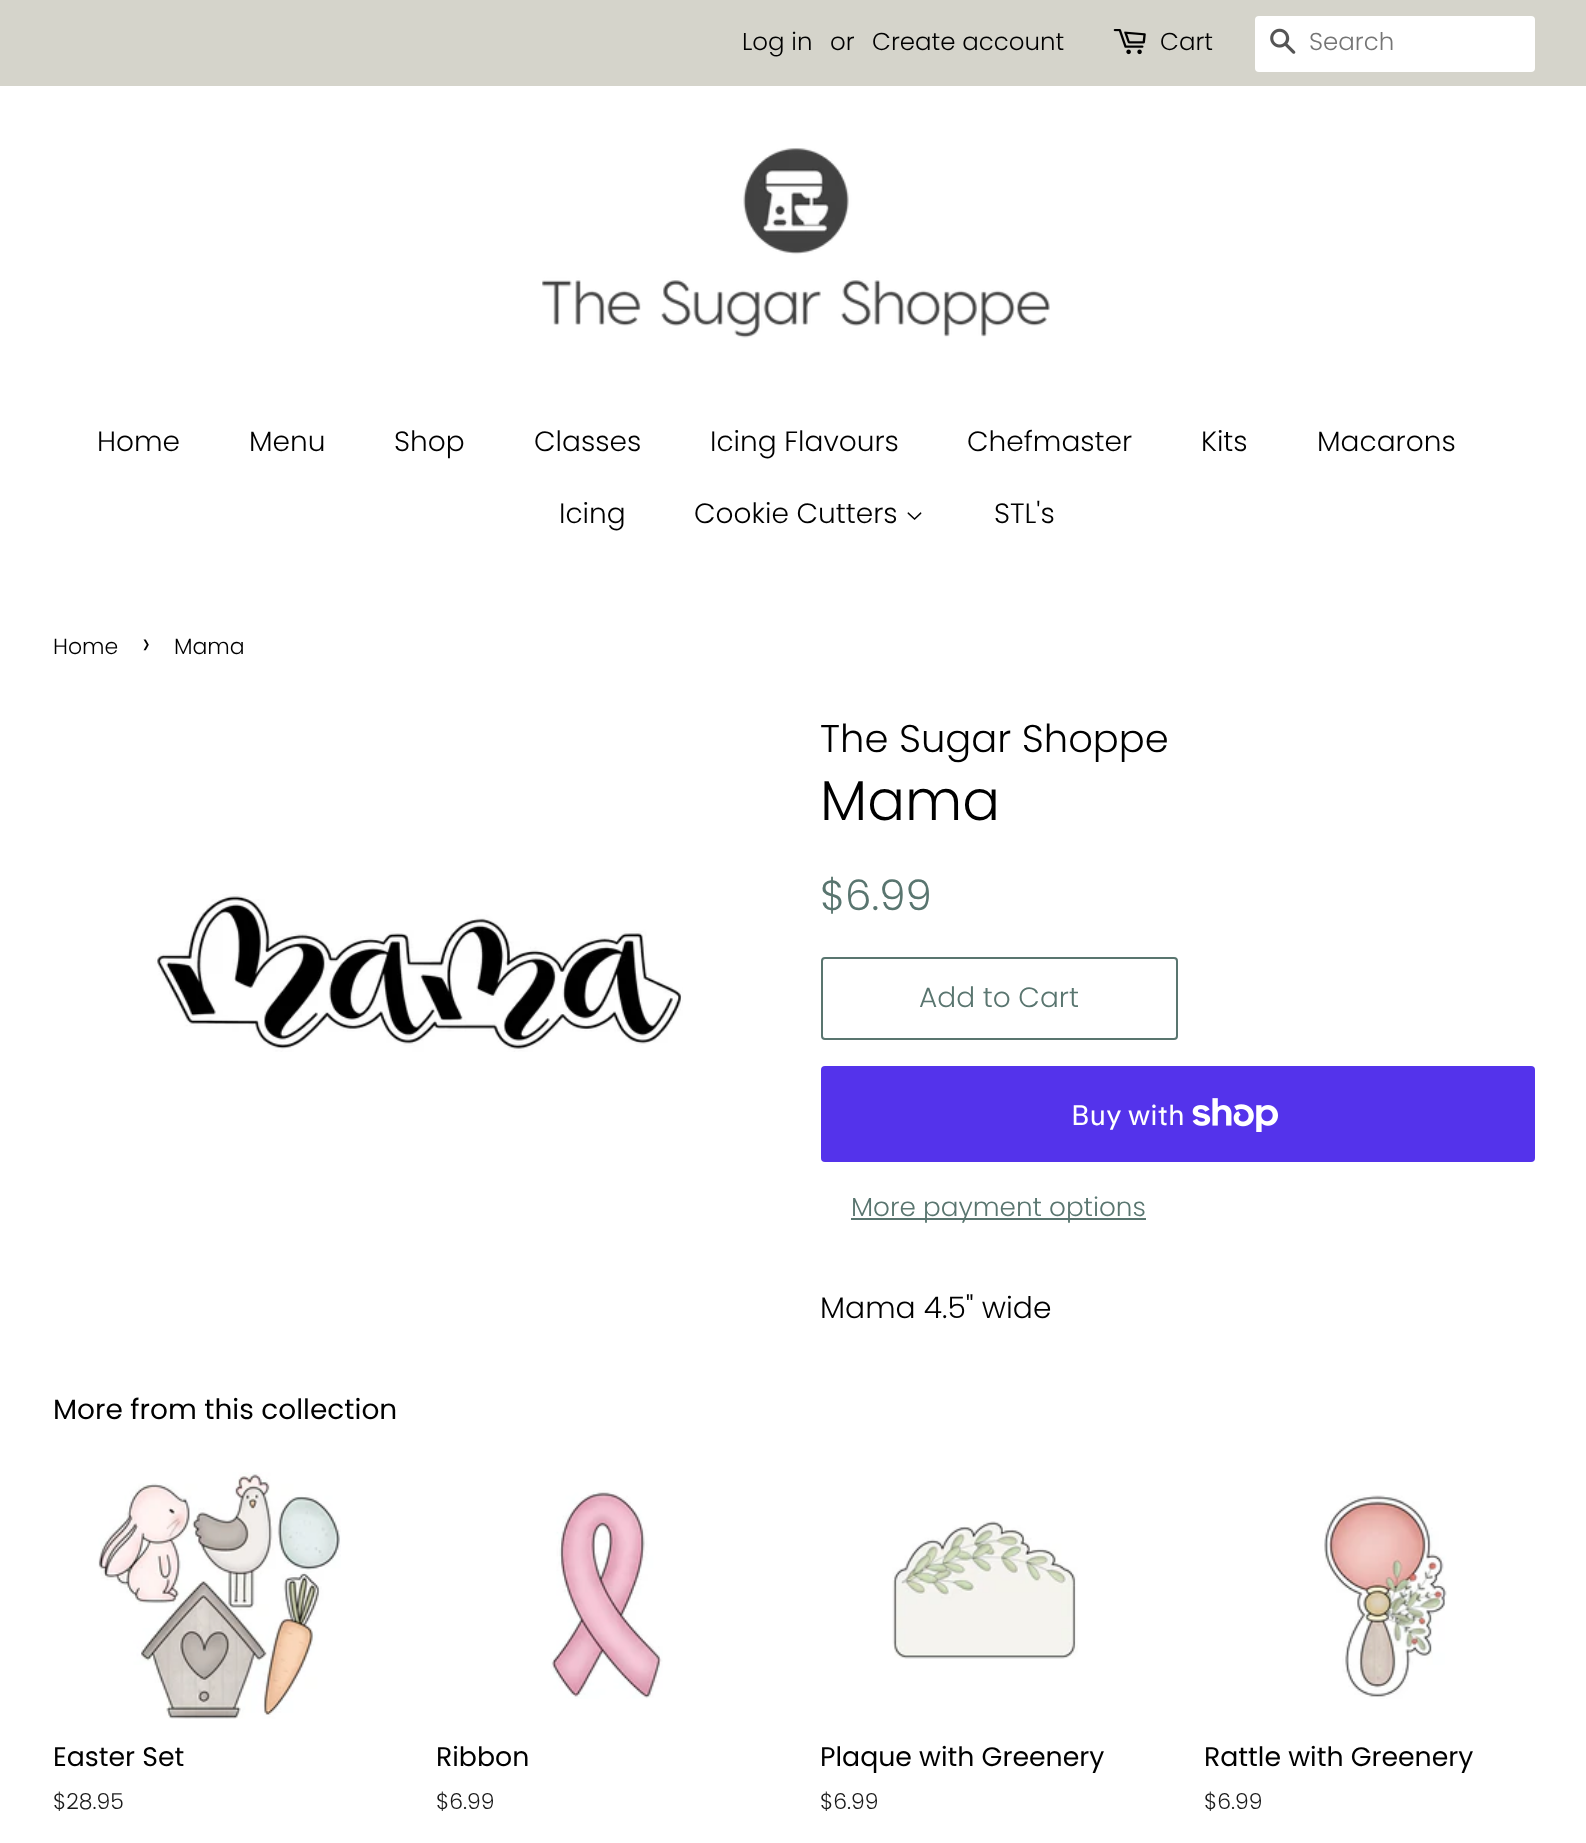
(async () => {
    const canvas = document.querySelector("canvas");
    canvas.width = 1586;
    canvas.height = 1843;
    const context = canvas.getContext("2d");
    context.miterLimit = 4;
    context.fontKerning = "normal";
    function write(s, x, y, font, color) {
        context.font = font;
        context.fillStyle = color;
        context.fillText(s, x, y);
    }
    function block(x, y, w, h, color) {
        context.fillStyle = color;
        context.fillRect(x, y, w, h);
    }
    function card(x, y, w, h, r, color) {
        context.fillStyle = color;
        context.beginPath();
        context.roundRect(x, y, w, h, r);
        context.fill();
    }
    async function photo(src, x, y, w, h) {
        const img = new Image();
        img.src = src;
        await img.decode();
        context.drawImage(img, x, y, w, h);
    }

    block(0, 0, 1586, 1843, "rgb(255, 255, 255)");
    block(0, 0, 1586, 86, "rgb(213, 212, 203)");
    write("Log in", 742, 50, "300 24.5px Poppins", "rgb(0, 0, 0)");
    write("or", 830, 50, "300 24.5px Poppins", "rgb(0, 0, 0)");
    write("Create account", 872, 50, "300 24.5px Poppins", "rgb(0, 0, 0)");
    await photo("media/1.png", 1113, 29, 33, 26);
    write("Cart", 1160, 50, "300 24.5px Poppins", "rgb(0, 0, 0)");
    card(1255, 16, 280, 56, 4, "rgb(255, 255, 255)");
    await photo("media/2.png", 1270, 28, 26, 26);
    write("Search", 1309, 50, "300 24.5px Poppins", "rgb(117, 117, 117)");
    await photo("media/3.png", 542, 148, 508, 190);
    write("Home", 97, 451, "300 28px Poppins", "rgb(0, 0, 0)");
    write("Menu", 249, 451, "300 28px Poppins", "rgb(0, 0, 0)");
    write("Shop", 394, 451, "300 28px Poppins", "rgb(0, 0, 0)");
    write("Classes", 534, 451, "300 28px Poppins", "rgb(0, 0, 0)");
    write("Icing Flavours", 710, 451, "300 28px Poppins", "rgb(0, 0, 0)");
    write("Chefmaster", 967, 451, "300 28px Poppins", "rgb(0, 0, 0)");
    write("Kits", 1201, 451, "300 28px Poppins", "rgb(0, 0, 0)");
    write("Macarons", 1317, 451, "300 28px Poppins", "rgb(0, 0, 0)");
    write("Icing", 559, 523, "300 28px Poppins", "rgb(0, 0, 0)");
    write("Cookie Cutters", 694, 523, "300 28px Poppins", "rgb(0, 0, 0)");
    await photo("media/4.png", 907, 512, 15, 8);
    write("STL's", 994, 523, "300 28px Poppins", "rgb(0, 0, 0)");
    write("Home", 53, 654, "300 22px Poppins", "rgb(0, 0, 0)");
    write("›", 142, 654, "300 31px Poppins", "rgb(0, 0, 0)");
    write("Mama", 174, 654, "300 22px Poppins", "rgb(0, 0, 0)");
    await photo("media/5.png", 155, 894, 528, 158);
    write("The Sugar Shoppe", 820, 752, "300 38.5px Poppins", "rgb(0, 0, 0)");
    write("Mama", 820, 820, "300 56px Poppins", "rgb(0, 0, 0)");
    write("$6.99", 820, 910, "300 42px Poppins", "rgb(89, 117, 111)");
    context.beginPath();
    context.roundRect(822, 958, 355, 81, 3);
    context.strokeStyle = "rgb(89, 117, 111)";
    context.lineWidth = 2;
    context.stroke();
    write("Add to Cart", 919, 1007, "300 28px Poppins", "rgb(89, 117, 111)");
    card(821, 1066, 714, 96, 4, "rgb(84, 51, 235)");
    write("Buy with", 1071, 1125, "28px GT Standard", "rgb(255, 255, 255)");
    await photo("media/6.png", 1192, 1098, 86, 34);
    block(851, 1218, 295, 2, "rgb(89, 117, 111)");
    write("More payment options", 851, 1216, "300 26.25px Poppins", "rgb(89, 117, 111)");
    write("Mama 4.5\" wide", 820, 1318, "300 29.75px Poppins", "rgb(0, 0, 0)");
    write("More from this collection", 53, 1419, "28px Poppins", "rgb(0, 0, 0)");
    await photo("media/7.png", 98, 1472, 243, 247);
    write("Easter Set", 53, 1766, "26.75px Poppins", "rgb(0, 0, 0)");
    write("$28.95", 53, 1809, "300 22px Poppins", "rgb(26, 26, 26)");
    await photo("media/8.png", 550, 1490, 113, 209);
    write("Ribbon", 436, 1766, "26.75px Poppins", "rgb(0, 0, 0)");
    write("$6.99", 436, 1809, "300 22px Poppins", "rgb(26, 26, 26)");
    await photo("media/9.png", 892, 1520, 186, 139);
    write("Plaque with Greenery", 820, 1766, "26.75px Poppins", "rgb(0, 0, 0)");
    write("$6.99", 820, 1809, "300 22px Poppins", "rgb(26, 26, 26)");
    await photo("media/10.png", 1324, 1495, 123, 204);
    write("Rattle with Greenery", 1204, 1766, "26.75px Poppins", "rgb(0, 0, 0)");
    write("$6.99", 1204, 1809, "300 22px Poppins", "rgb(26, 26, 26)");
})();
